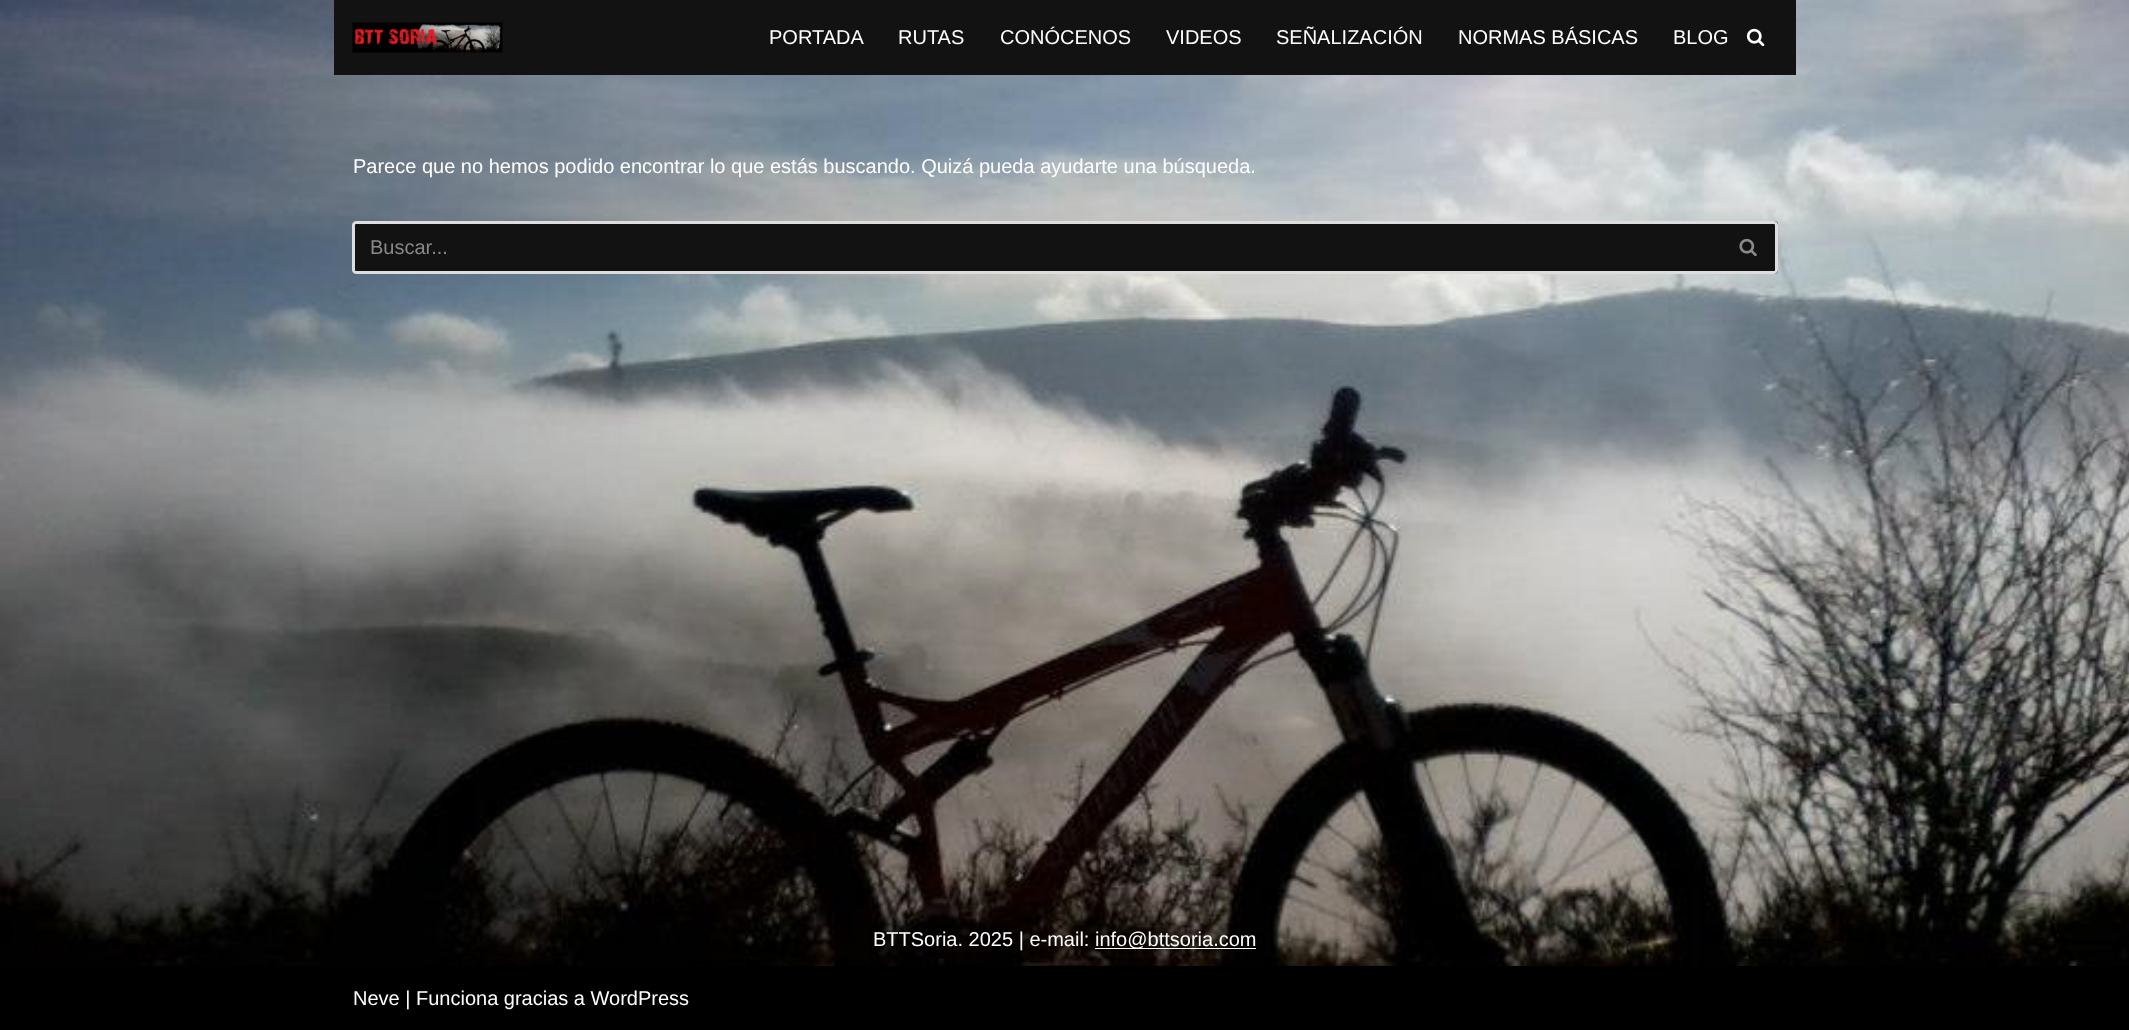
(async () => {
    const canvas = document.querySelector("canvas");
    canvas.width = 2129;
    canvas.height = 1030;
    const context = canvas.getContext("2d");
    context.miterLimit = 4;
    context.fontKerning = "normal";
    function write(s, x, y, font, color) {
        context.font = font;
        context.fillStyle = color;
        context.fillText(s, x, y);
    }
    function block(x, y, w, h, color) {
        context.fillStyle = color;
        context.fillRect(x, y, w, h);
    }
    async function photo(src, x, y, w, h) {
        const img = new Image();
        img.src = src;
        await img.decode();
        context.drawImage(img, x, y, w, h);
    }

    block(0, 0, 2129, 1030, "rgb(255, 255, 255)");
    await photo("media/1.png", 0, 0, 2129, 966);
    block(334, 0, 1462, 75, "rgb(18, 18, 18)");
    await photo("media/2.png", 352, 22, 151, 31);
    write("PORTADA", 769, 44, "20px Liberation Sans", "rgb(255, 255, 255)");
    write("RUTAS", 898, 44, "20px Liberation Sans", "rgb(255, 255, 255)");
    write("CONÓCENOS", 1000, 44, "20px Liberation Sans", "rgb(255, 255, 255)");
    write("VIDEOS", 1166, 44, "20px Liberation Sans", "rgb(255, 255, 255)");
    write("SEÑALIZACIÓN", 1276, 44, "20px Liberation Sans", "rgb(255, 255, 255)");
    write("NORMAS BÁSICAS", 1458, 44, "20px Liberation Sans", "rgb(255, 255, 255)");
    write("BLOG", 1673, 44, "20px Liberation Sans", "rgb(255, 255, 255)");
    await photo("media/3.png", 1746, 28, 19, 18);
    write("Parece que no hemos podido encontrar lo que estás buscando. Quizá pueda ayudarte una búsqueda.", 353, 173, "20px Liberation Sans", "rgb(255, 255, 255)");
    context.fillStyle = "rgb(18, 18, 18)";
    context.beginPath();
    context.roundRect(353, 221, 1368, 53, [4, 0, 0, 4]);
    context.fill();
    context.fillStyle = "rgb(221, 221, 221)";
    context.beginPath();
    context.moveTo(356, 221);
    context.lineTo(1721, 221);
    context.lineTo(1721, 274);
    context.lineTo(356, 274);
    context.bezierCurveTo(354, 274, 352, 272, 352, 270);
    context.lineTo(352, 225);
    context.bezierCurveTo(352, 223, 354, 221, 356, 221);
    context.closePath();
    context.moveTo(356, 224);
    context.lineTo(1721, 224);
    context.lineTo(1721, 271);
    context.lineTo(356, 271);
    context.bezierCurveTo(356, 271, 355, 271, 355, 270);
    context.lineTo(355, 225);
    context.bezierCurveTo(355, 224, 356, 224, 356, 224);
    context.closePath();
    context.fill("evenodd");
    write("Buscar...", 370, 254, "20px Liberation Sans", "rgb(137, 137, 137)");
    context.fillStyle = "rgb(18, 18, 18)";
    context.beginPath();
    context.roundRect(1721, 221, 57, 53, [0, 4, 4, 0]);
    context.fill();
    context.fillStyle = "rgb(221, 221, 221)";
    context.beginPath();
    context.moveTo(1721, 221);
    context.lineTo(1774, 221);
    context.bezierCurveTo(1776, 221, 1778, 223, 1778, 225);
    context.lineTo(1778, 270);
    context.bezierCurveTo(1778, 272, 1776, 274, 1774, 274);
    context.lineTo(1721, 274);
    context.closePath();
    context.moveTo(1721, 224);
    context.lineTo(1774, 224);
    context.bezierCurveTo(1774, 224, 1775, 224, 1775, 225);
    context.lineTo(1775, 270);
    context.bezierCurveTo(1775, 271, 1774, 271, 1774, 271);
    context.lineTo(1721, 271);
    context.closePath();
    context.fill("evenodd");
    await photo("media/4.png", 1739, 238, 18, 18);
    write("BTTSoria. 2025 | e-mail:", 873, 946, "20px Liberation Sans", "rgb(255, 255, 255)");
    block(1095, 948, 161, 1, "rgb(255, 255, 255)");
    write("info@bttsoria.com", 1095, 946, "20px Liberation Sans", "rgb(255, 255, 255)");
    block(0, 966, 2129, 64, "rgb(0, 0, 0)");
    write("Neve | Funciona gracias a WordPress", 353, 1005, "20px Liberation Sans", "rgb(255, 255, 255)");
})();
